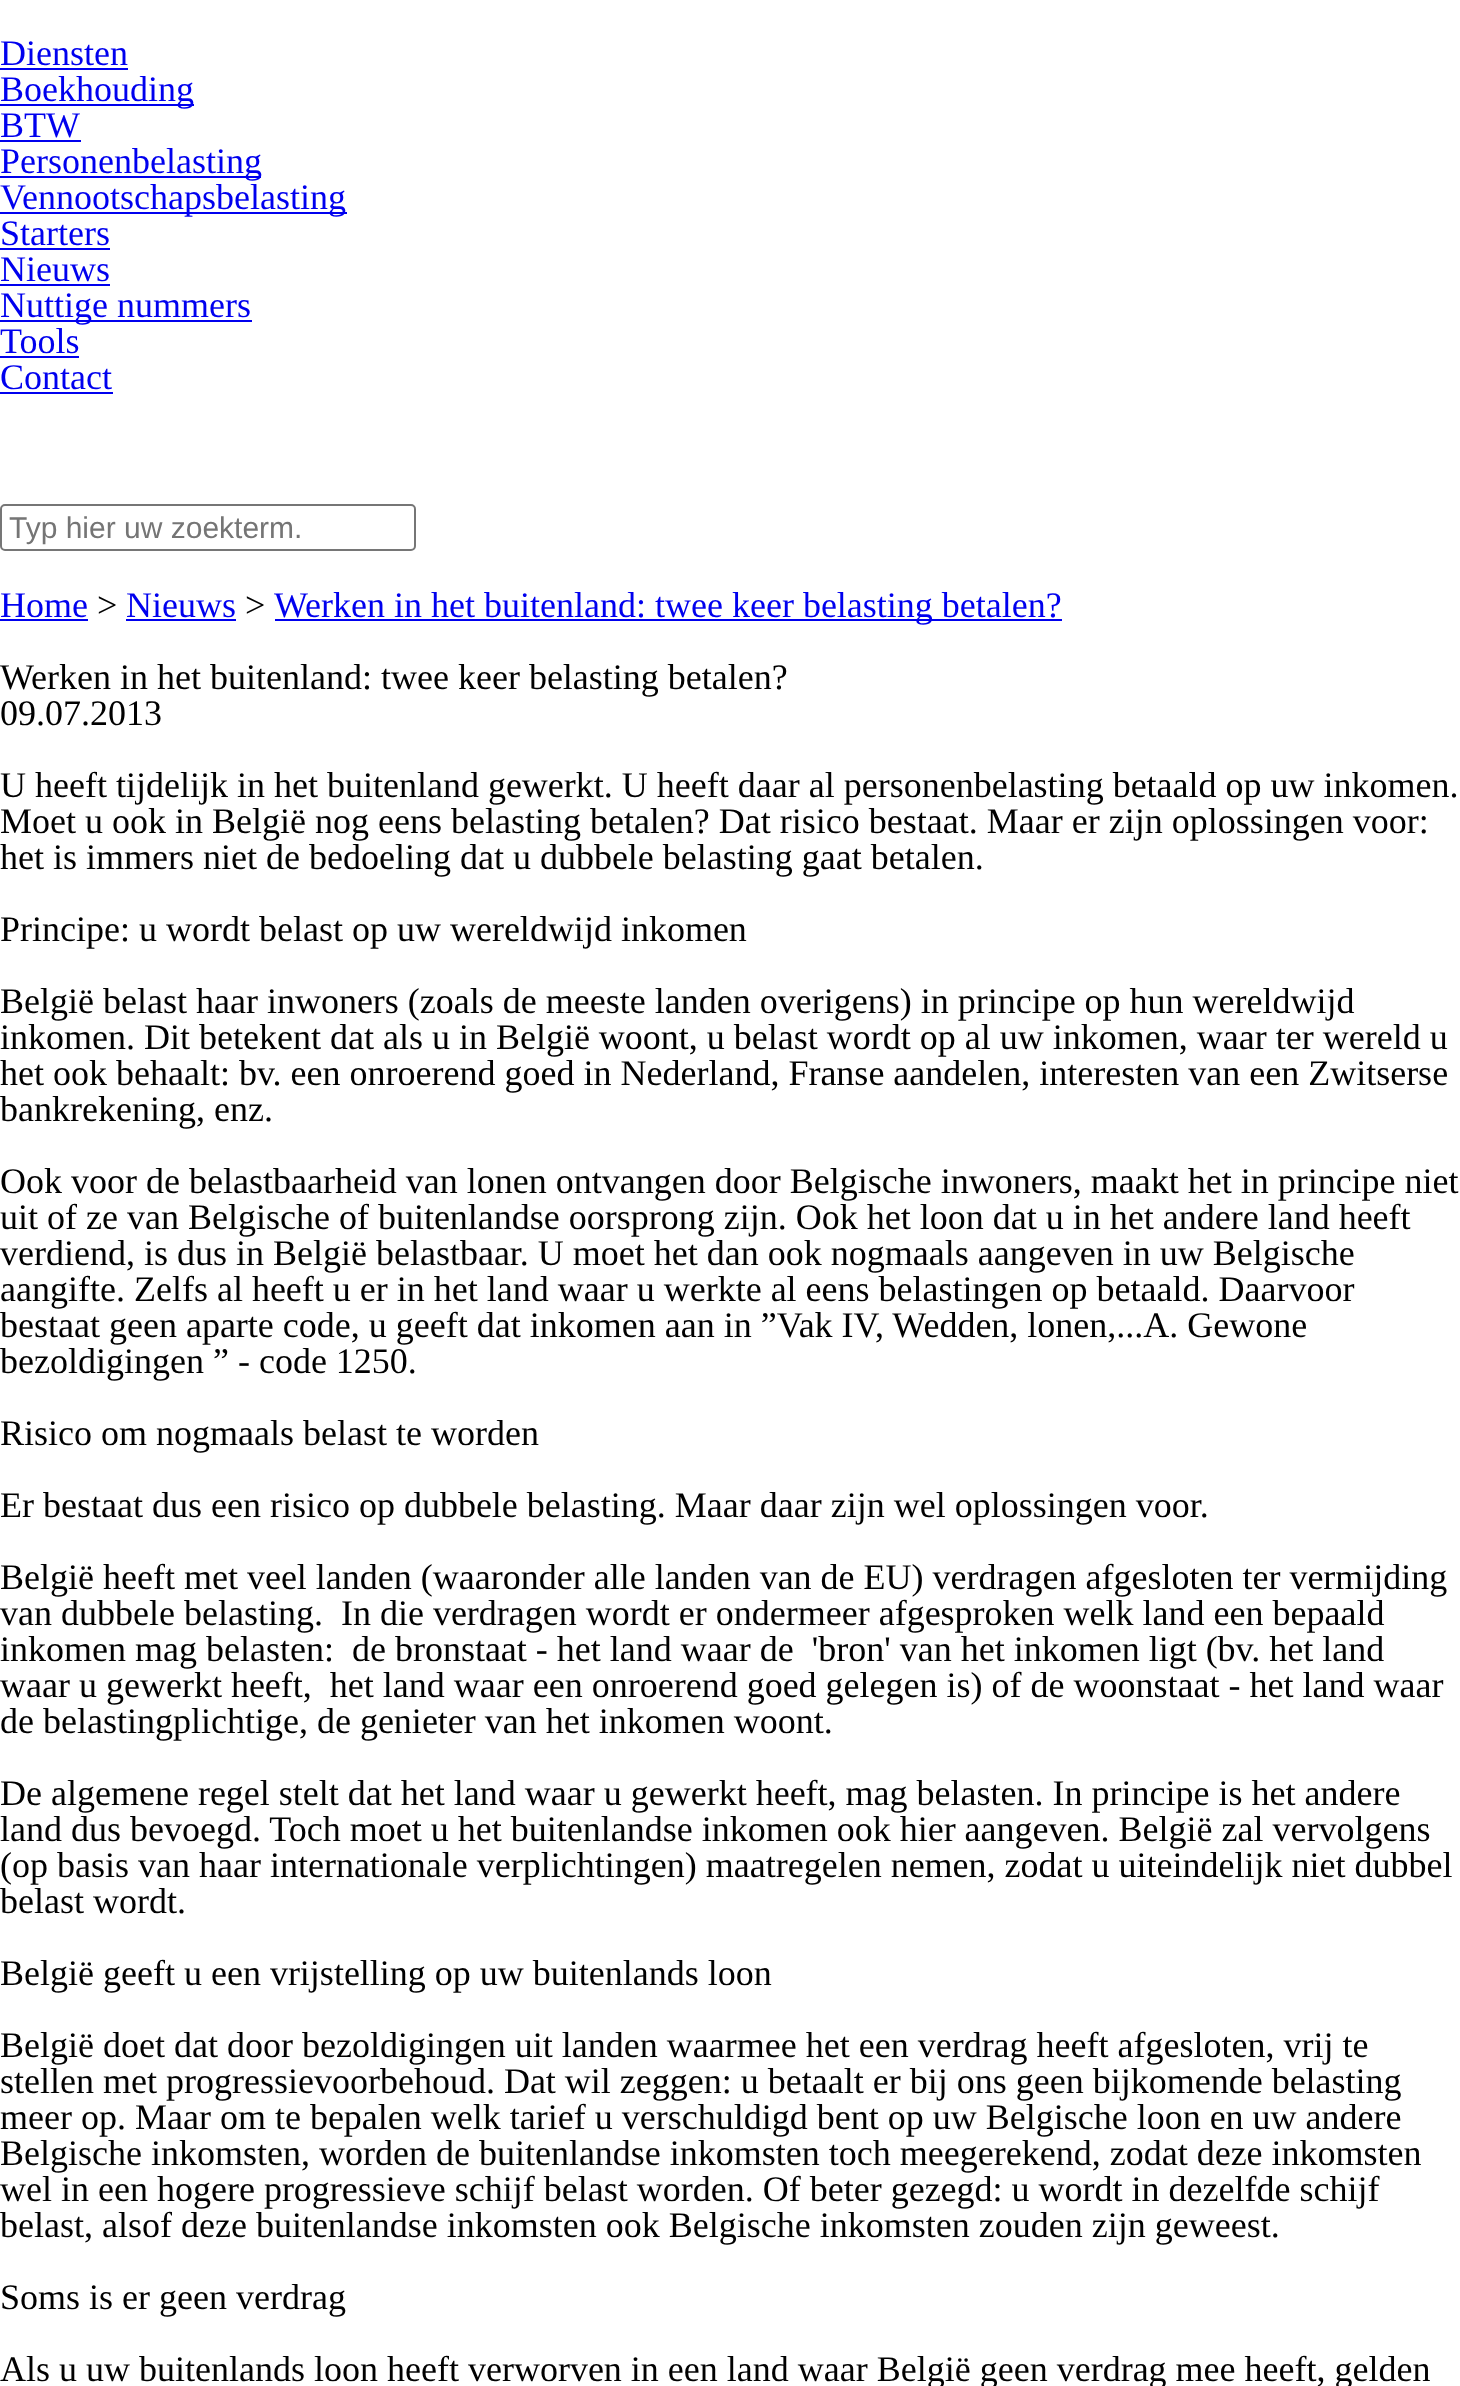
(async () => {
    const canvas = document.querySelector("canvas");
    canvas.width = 1460;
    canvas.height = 2386;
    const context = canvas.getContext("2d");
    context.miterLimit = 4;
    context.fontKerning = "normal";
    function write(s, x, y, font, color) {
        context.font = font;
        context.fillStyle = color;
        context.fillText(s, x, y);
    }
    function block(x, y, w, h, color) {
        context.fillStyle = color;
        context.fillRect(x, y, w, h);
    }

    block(0, 0, 1460, 2386, "rgb(255, 255, 255)");
    write("Diensten", 0, 65, "36px Liberation Serif", "rgb(0, 0, 238)");
    block(0, 68, 128, 2, "rgb(0, 0, 238)");
    block(0, 104, 194, 2, "rgb(0, 0, 238)");
    write("Boekhouding", 0, 101, "36px Liberation Serif", "rgb(0, 0, 238)");
    write("BTW", 0, 137, "36px Liberation Serif", "rgb(0, 0, 238)");
    block(0, 140, 81, 2, "rgb(0, 0, 238)");
    block(0, 176, 261, 2, "rgb(0, 0, 238)");
    write("Personenbelasting", 0, 173, "36px Liberation Serif", "rgb(0, 0, 238)");
    block(0, 212, 347, 2, "rgb(0, 0, 238)");
    write("Vennootschapsbelasting", 0, 209, "36px Liberation Serif", "rgb(0, 0, 238)");
    write("Starters", 0, 245, "36px Liberation Serif", "rgb(0, 0, 238)");
    block(0, 248, 110, 2, "rgb(0, 0, 238)");
    write("Nieuws", 0, 281, "36px Liberation Serif", "rgb(0, 0, 238)");
    block(0, 284, 110, 2, "rgb(0, 0, 238)");
    block(0, 320, 252, 2, "rgb(0, 0, 238)");
    write("Nuttige nummers", 0, 317, "36px Liberation Serif", "rgb(0, 0, 238)");
    write("Tools", 0, 353, "36px Liberation Serif", "rgb(0, 0, 238)");
    block(0, 356, 79, 2, "rgb(0, 0, 238)");
    write("Contact", 0, 389, "36px Liberation Serif", "rgb(0, 0, 238)");
    block(0, 392, 113, 2, "rgb(0, 0, 238)");
    context.beginPath();
    context.roundRect(1, 505, 414, 45, 4);
    context.strokeStyle = "rgb(118, 118, 118)";
    context.lineWidth = 2;
    context.stroke();
    write("Typ hier uw zoekterm.", 9, 538, "30px Liberation Sans", "rgb(117, 117, 117)");
    write("Home", 0, 617, "36px Liberation Serif", "rgb(0, 0, 238)");
    block(0, 619, 88, 2, "rgb(0, 0, 238)");
    write(">", 97, 617, "36px Liberation Serif", "rgb(0, 0, 0)");
    write("Nieuws", 126, 617, "36px Liberation Serif", "rgb(0, 0, 238)");
    block(126, 619, 110, 2, "rgb(0, 0, 238)");
    write(">", 245, 617, "36px Liberation Serif", "rgb(0, 0, 0)");
    block(275, 619, 787, 2, "rgb(0, 0, 238)");
    write("Werken in het buitenland: twee keer belasting betalen?", 274, 617, "36px Liberation Serif", "rgb(0, 0, 238)");
    write("Werken in het buitenland: twee keer belasting betalen?", 0, 689, "36px Liberation Serif", "rgb(0, 0, 0)");
    write("09.07.2013", 0, 725, "36px Liberation Serif", "rgb(0, 0, 0)");
    write("U heeft tijdelijk in het buitenland gewerkt. U heeft daar al personenbelasting betaald op uw inkomen.", 0, 797, "36px Liberation Serif", "rgb(0, 0, 0)");
    write("Moet u ook in België nog eens belasting betalen? Dat risico bestaat. Maar er zijn oplossingen voor:", 0, 833, "36px Liberation Serif", "rgb(0, 0, 0)");
    write("het is immers niet de bedoeling dat u dubbele belasting gaat betalen.", 0, 869, "36px Liberation Serif", "rgb(0, 0, 0)");
    write("Principe: u wordt belast op uw wereldwijd inkomen", 0, 941, "36px Liberation Serif", "rgb(0, 0, 0)");
    write("België belast haar inwoners (zoals de meeste landen overigens) in principe op hun wereldwijd", 0, 1013, "36px Liberation Serif", "rgb(0, 0, 0)");
    write("inkomen. Dit betekent dat als u in België woont, u belast wordt op al uw inkomen, waar ter wereld u", 0, 1049, "36px Liberation Serif", "rgb(0, 0, 0)");
    write("het ook behaalt: bv. een onroerend goed in Nederland, Franse aandelen, interesten van een Zwitserse", 0, 1085, "36px Liberation Serif", "rgb(0, 0, 0)");
    write("bankrekening, enz.", 0, 1121, "36px Liberation Serif", "rgb(0, 0, 0)");
    write("Ook voor de belastbaarheid van lonen ontvangen door Belgische inwoners, maakt het in principe niet", 0, 1193, "36px Liberation Serif", "rgb(0, 0, 0)");
    write("uit of ze van Belgische of buitenlandse oorsprong zijn. Ook het loon dat u in het andere land heeft", 0, 1229, "36px Liberation Serif", "rgb(0, 0, 0)");
    write("verdiend, is dus in België belastbaar. U moet het dan ook nogmaals aangeven in uw Belgische", 0, 1265, "36px Liberation Serif", "rgb(0, 0, 0)");
    write("aangifte. Zelfs al heeft u er in het land waar u werkte al eens belastingen op betaald. Daarvoor", 0, 1301, "36px Liberation Serif", "rgb(0, 0, 0)");
    write("bestaat geen aparte code, u geeft dat inkomen aan in ”Vak IV, Wedden, lonen,...A. Gewone", 0, 1337, "36px Liberation Serif", "rgb(0, 0, 0)");
    write("bezoldigingen ” - code 1250.", 0, 1373, "36px Liberation Serif", "rgb(0, 0, 0)");
    write("Risico om nogmaals belast te worden", 0, 1445, "36px Liberation Serif", "rgb(0, 0, 0)");
    write("Er bestaat dus een risico op dubbele belasting. Maar daar zijn wel oplossingen voor.", 0, 1517, "36px Liberation Serif", "rgb(0, 0, 0)");
    write("België heeft met veel landen (waaronder alle landen van de EU) verdragen afgesloten ter vermijding", 0, 1589, "36px Liberation Serif", "rgb(0, 0, 0)");
    write("van dubbele belasting.  In die verdragen wordt er ondermeer afgesproken welk land een bepaald", 0, 1625, "36px Liberation Serif", "rgb(0, 0, 0)");
    write("inkomen mag belasten:  de bronstaat - het land waar de  'bron' van het inkomen ligt (bv. het land", 0, 1661, "36px Liberation Serif", "rgb(0, 0, 0)");
    write("waar u gewerkt heeft,  het land waar een onroerend goed gelegen is) of de woonstaat - het land waar", 0, 1697, "36px Liberation Serif", "rgb(0, 0, 0)");
    write("de belastingplichtige, de genieter van het inkomen woont.", 0, 1733, "36px Liberation Serif", "rgb(0, 0, 0)");
    write("De algemene regel stelt dat het land waar u gewerkt heeft, mag belasten. In principe is het andere", 0, 1805, "36px Liberation Serif", "rgb(0, 0, 0)");
    write("land dus bevoegd. Toch moet u het buitenlandse inkomen ook hier aangeven. België zal vervolgens", 0, 1841, "36px Liberation Serif", "rgb(0, 0, 0)");
    write("(op basis van haar internationale verplichtingen) maatregelen nemen, zodat u uiteindelijk niet dubbel", 0, 1877, "36px Liberation Serif", "rgb(0, 0, 0)");
    write("belast wordt.", 0, 1913, "36px Liberation Serif", "rgb(0, 0, 0)");
    write("België geeft u een vrijstelling op uw buitenlands loon", 0, 1985, "36px Liberation Serif", "rgb(0, 0, 0)");
    write("België doet dat door bezoldigingen uit landen waarmee het een verdrag heeft afgesloten, vrij te", 0, 2057, "36px Liberation Serif", "rgb(0, 0, 0)");
    write("stellen met progressievoorbehoud. Dat wil zeggen: u betaalt er bij ons geen bijkomende belasting", 0, 2093, "36px Liberation Serif", "rgb(0, 0, 0)");
    write("meer op. Maar om te bepalen welk tarief u verschuldigd bent op uw Belgische loon en uw andere", 0, 2129, "36px Liberation Serif", "rgb(0, 0, 0)");
    write("Belgische inkomsten, worden de buitenlandse inkomsten toch meegerekend, zodat deze inkomsten", 0, 2165, "36px Liberation Serif", "rgb(0, 0, 0)");
    write("wel in een hogere progressieve schijf belast worden. Of beter gezegd: u wordt in dezelfde schijf", 0, 2201, "36px Liberation Serif", "rgb(0, 0, 0)");
    write("belast, alsof deze buitenlandse inkomsten ook Belgische inkomsten zouden zijn geweest.", 0, 2237, "36px Liberation Serif", "rgb(0, 0, 0)");
    write("Soms is er geen verdrag", 0, 2309, "36px Liberation Serif", "rgb(0, 0, 0)");
    write("Als u uw buitenlands loon heeft verworven in een land waar België geen verdrag mee heeft, gelden", 0, 2381, "36px Liberation Serif", "rgb(0, 0, 0)");
})();
